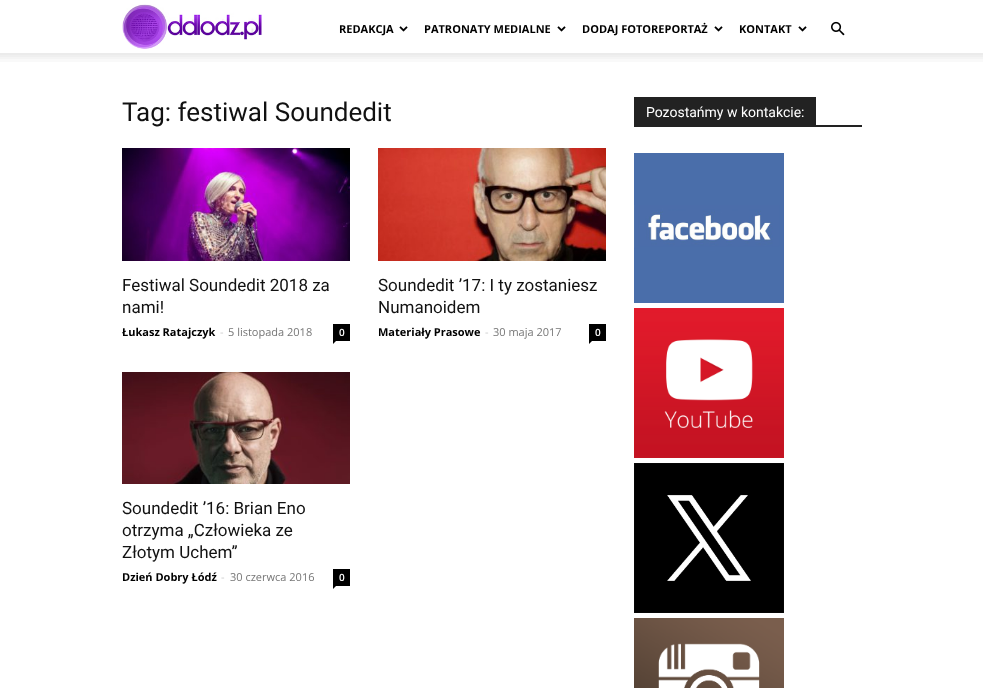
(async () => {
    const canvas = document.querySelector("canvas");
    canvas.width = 983;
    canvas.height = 688;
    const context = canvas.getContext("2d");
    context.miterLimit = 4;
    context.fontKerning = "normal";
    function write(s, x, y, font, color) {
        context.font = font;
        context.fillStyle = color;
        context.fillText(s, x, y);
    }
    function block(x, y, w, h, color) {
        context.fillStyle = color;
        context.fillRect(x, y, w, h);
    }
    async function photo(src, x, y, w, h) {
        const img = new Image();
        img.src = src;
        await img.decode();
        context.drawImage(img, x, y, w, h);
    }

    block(0, 0, 983, 688, "rgb(255, 255, 255)");
    await photo("media/1.png", 122, 4, 140, 45);
    write("REDAKCJA", 339, 33, "bold 11px Open Sans", "rgb(0, 0, 0)");
    await photo("media/2.png", 399, 26, 9, 6);
    write("PATRONATY MEDIALNE", 424, 33, "bold 11px Open Sans", "rgb(0, 0, 0)");
    await photo("media/2.png", 557, 26, 9, 6);
    write("DODAJ FOTOREPORTAŻ", 582, 33, "bold 11px Open Sans", "rgb(0, 0, 0)");
    await photo("media/2.png", 714, 26, 9, 6);
    write("KONTAKT", 739, 33, "bold 11px Open Sans", "rgb(0, 0, 0)");
    await photo("media/2.png", 798, 26, 9, 6);
    await photo("media/3.png", 831, 21, 14, 15);
    await photo("media/4.png", 0, 53, 983, 9);
    write("Tag: festiwal Soundedit", 122, 121, "26px Roboto", "rgb(17, 17, 17)");
    await photo("media/5.png", 122, 148, 228, 113);
    write("Festiwal Soundedit 2018 za", 122, 291, "17px Roboto", "rgb(17, 17, 17)");
    write("nami!", 122, 313, "17px Roboto", "rgb(17, 17, 17)");
    write("Łukasz Ratajczyk", 122, 336, "bold 11px Open Sans", "rgb(0, 0, 0)");
    write("-", 220, 336, "11px Open Sans", "rgb(204, 204, 204)");
    write("5 listopada 2018", 228, 336, "11px Open Sans", "rgb(118, 118, 118)");
    block(333, 324, 17, 17, "rgb(0, 0, 0)");
    write("0", 339, 336, "600 10px Open Sans", "rgb(255, 255, 255)");
    context.fillStyle = "rgb(0, 0, 0)";
    context.beginPath();
    context.moveTo(333, 341);
    context.lineTo(336, 341);
    context.lineTo(333, 344);
    context.closePath();
    context.fill();
    await photo("media/6.png", 378, 148, 228, 113);
    write("Soundedit ’17: I ty zostaniesz", 378, 291, "17px Roboto", "rgb(17, 17, 17)");
    write("Numanoidem", 378, 313, "17px Roboto", "rgb(17, 17, 17)");
    write("Materiały Prasowe", 378, 336, "bold 11px Open Sans", "rgb(0, 0, 0)");
    write("-", 485, 336, "11px Open Sans", "rgb(204, 204, 204)");
    write("30 maja 2017", 493, 336, "11px Open Sans", "rgb(118, 118, 118)");
    block(589, 324, 17, 17, "rgb(0, 0, 0)");
    write("0", 595, 336, "600 10px Open Sans", "rgb(255, 255, 255)");
    context.fillStyle = "rgb(0, 0, 0)";
    context.beginPath();
    context.moveTo(589, 341);
    context.lineTo(592, 341);
    context.lineTo(589, 344);
    context.closePath();
    context.fill();
    await photo("media/7.png", 122, 372, 228, 112);
    write("Soundedit ’16: Brian Eno", 122, 514, "17px Roboto", "rgb(17, 17, 17)");
    write("otrzyma „Człowieka ze", 122, 536, "17px Roboto", "rgb(17, 17, 17)");
    write("Złotym Uchem”", 122, 558, "17px Roboto", "rgb(17, 17, 17)");
    write("Dzień Dobry Łódź", 122, 581, "bold 11px Open Sans", "rgb(0, 0, 0)");
    write("-", 221, 581, "11px Open Sans", "rgb(204, 204, 204)");
    write("30 czerwca 2016", 230, 581, "11px Open Sans", "rgb(118, 118, 118)");
    block(333, 569, 17, 17, "rgb(0, 0, 0)");
    write("0", 339, 581, "600 10px Open Sans", "rgb(255, 255, 255)");
    context.fillStyle = "rgb(0, 0, 0)";
    context.beginPath();
    context.moveTo(333, 586);
    context.lineTo(336, 586);
    context.lineTo(333, 589);
    context.closePath();
    context.fill();
    block(634, 125, 228, 2, "rgb(34, 34, 34)");
    block(634, 97, 182, 28, "rgb(34, 34, 34)");
    write("Pozostańmy w kontakcie:", 646, 117, "14px Roboto", "rgb(255, 255, 255)");
    await photo("media/8.png", 634, 153, 150, 150);
    await photo("media/9.png", 634, 308, 150, 150);
    await photo("media/10.png", 634, 463, 150, 150);
    await photo("media/11.png", 634, 618, 150, 70);
})();
